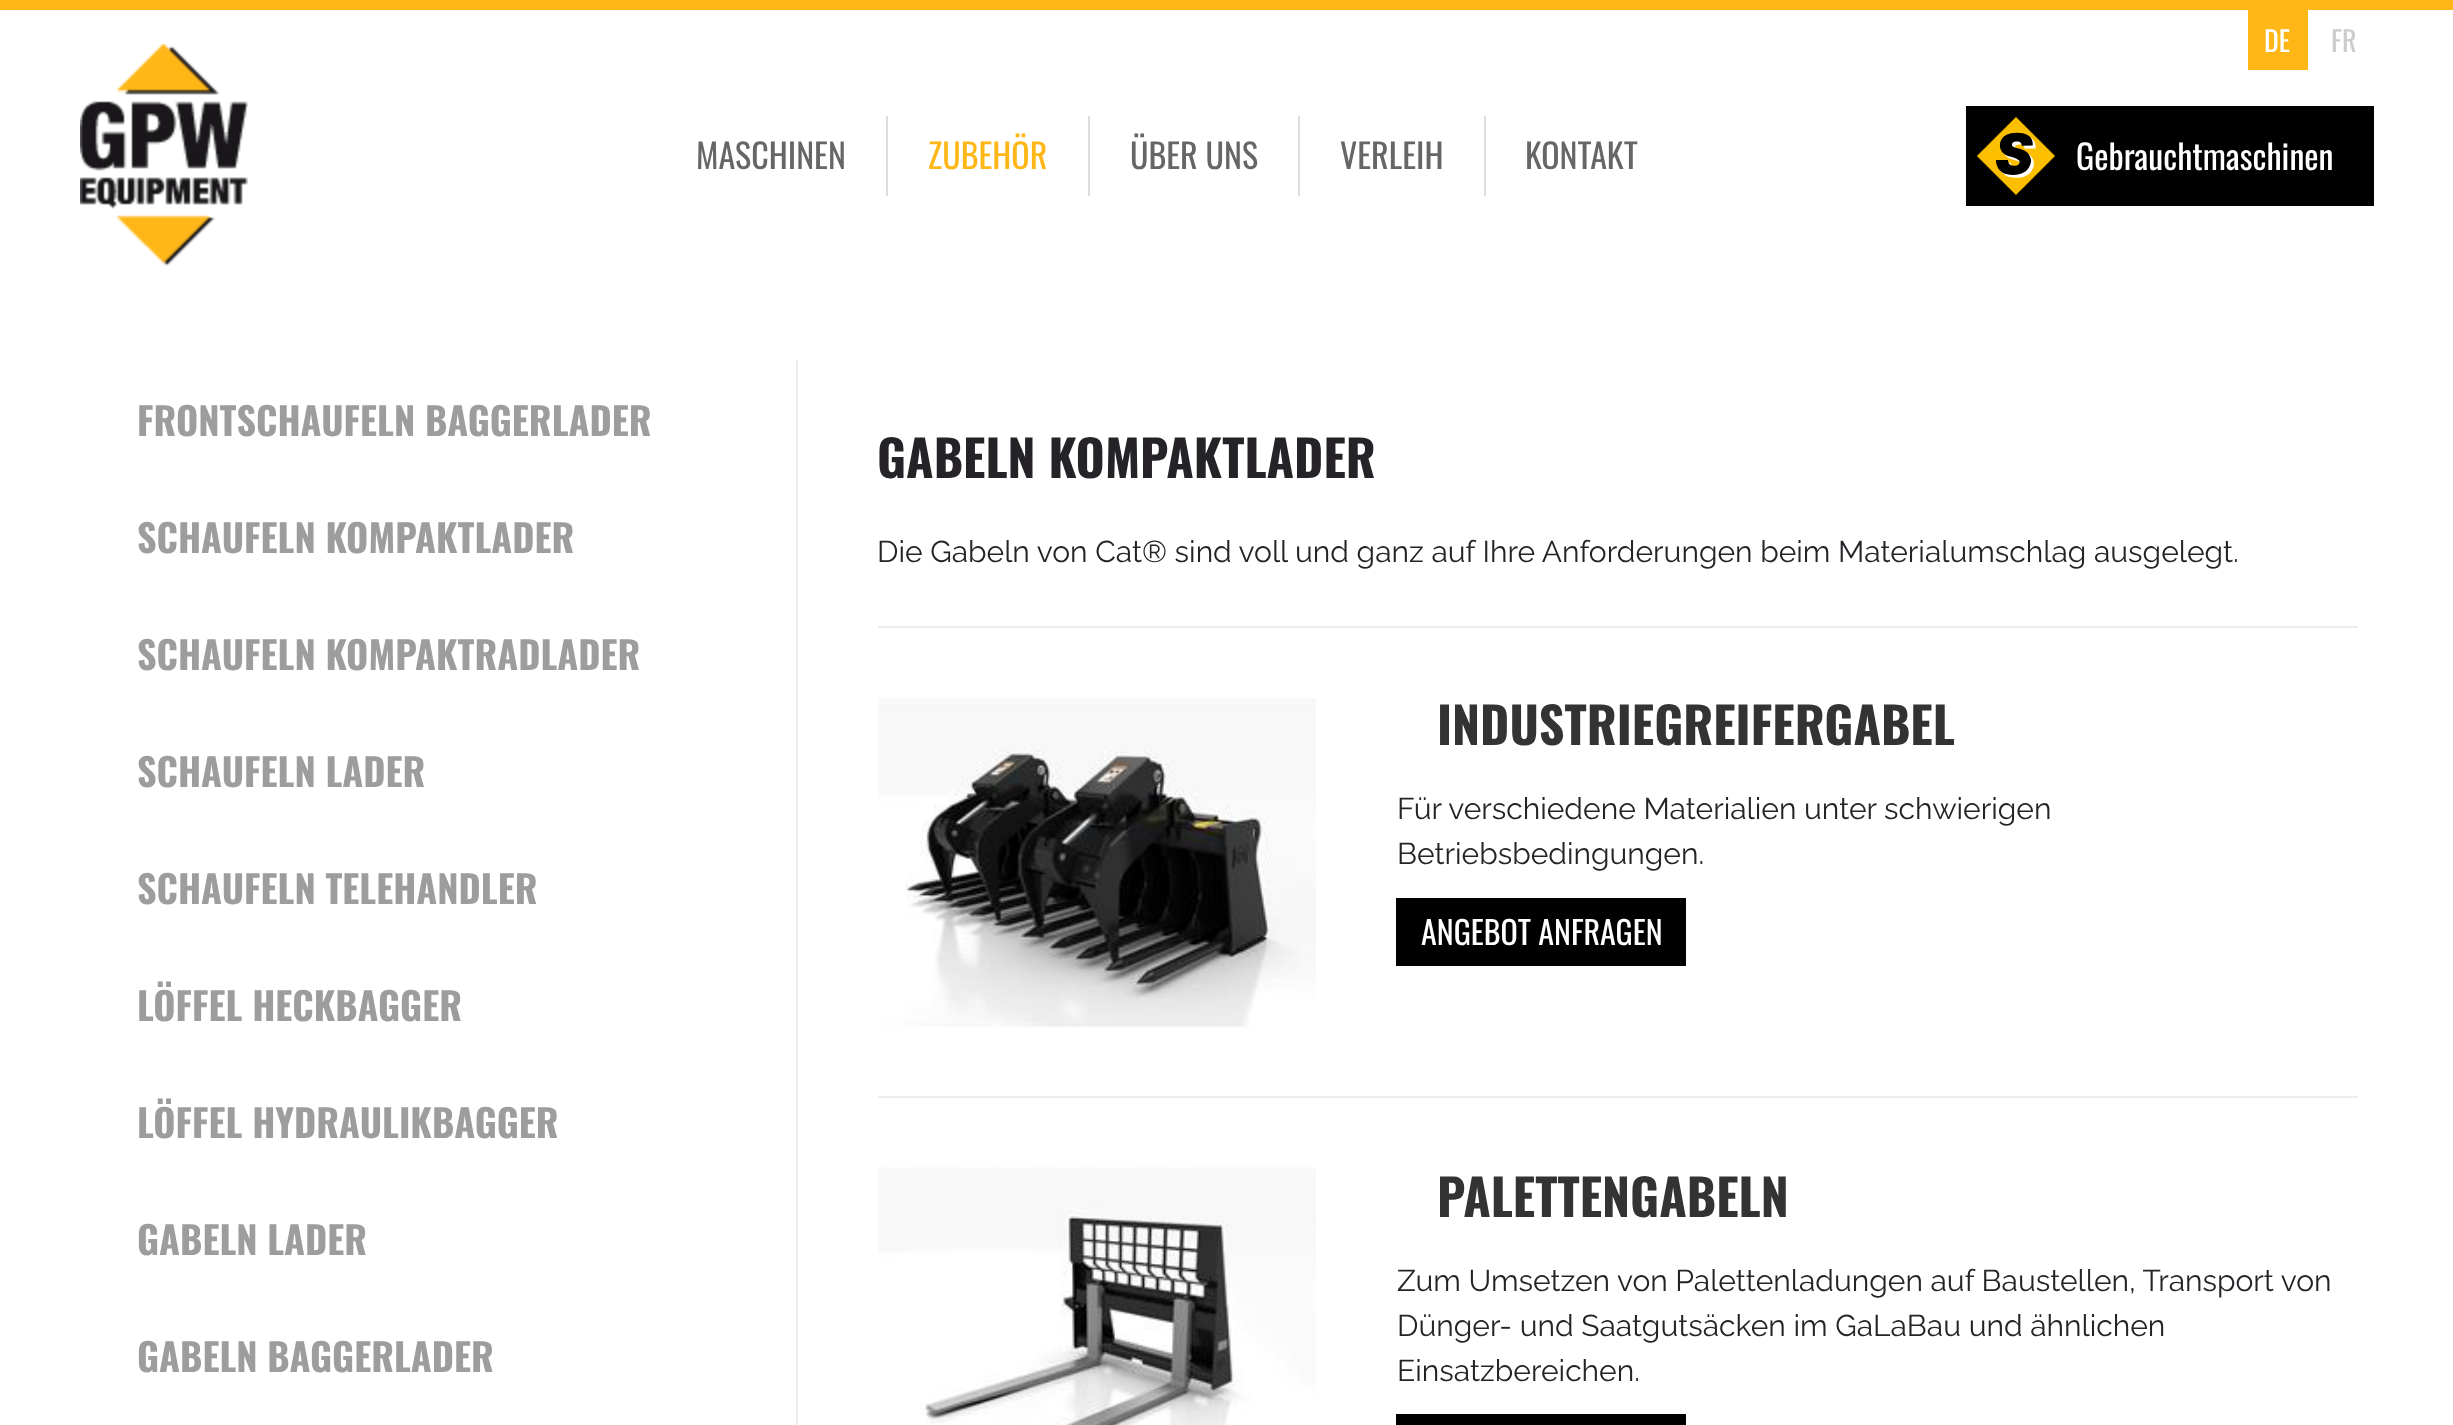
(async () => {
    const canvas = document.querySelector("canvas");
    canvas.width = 2453;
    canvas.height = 1425;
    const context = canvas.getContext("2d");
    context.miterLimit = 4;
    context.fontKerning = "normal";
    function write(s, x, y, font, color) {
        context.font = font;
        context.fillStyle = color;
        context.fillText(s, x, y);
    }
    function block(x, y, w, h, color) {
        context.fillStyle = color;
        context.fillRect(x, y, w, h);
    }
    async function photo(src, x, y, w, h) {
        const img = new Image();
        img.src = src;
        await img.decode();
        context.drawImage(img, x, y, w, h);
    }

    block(0, 0, 2453, 1425, "rgb(255, 255, 255)");
    block(0, 0, 2453, 10, "rgb(255, 183, 24)");
    block(2248, 10, 60, 60, "rgb(255, 183, 24)");
    write("DE", 2264, 52, "28px Oswald", "rgb(255, 255, 255)");
    write("FR", 2331, 52, "28px Oswald", "rgb(204, 204, 204)");
    await photo("media/1.png", 80, 44, 168, 222);
    block(886, 116, 2, 80, "rgb(221, 221, 221)");
    write("MASCHINEN", 696, 169, "34px Oswald", "rgb(102, 102, 102)");
    block(1088, 116, 2, 80, "rgb(221, 221, 221)");
    write("ZUBEHÖR", 928, 169, "34px Oswald", "rgb(255, 183, 24)");
    block(1298, 116, 2, 80, "rgb(221, 221, 221)");
    write("ÜBER UNS", 1130, 169, "34px Oswald", "rgb(102, 102, 102)");
    block(1484, 116, 2, 80, "rgb(221, 221, 221)");
    write("VERLEIH", 1340, 169, "34px Oswald", "rgb(102, 102, 102)");
    write("KONTAKT", 1525, 169, "34px Oswald", "rgb(102, 102, 102)");
    block(1966, 106, 408, 100, "rgb(0, 0, 0)");
    await photo("media/2.png", 1976, 116, 80, 80);
    write("Gebrauchtmaschinen", 2076, 170, "34px Oswald", "rgb(255, 255, 255)");
    block(796, 360, 2, 1065, "rgb(236, 236, 236)");
    write("FRONTSCHAUFELN BAGGERLADER", 137, 436, "bold 38px Oswald", "rgb(157, 157, 157)");
    write("SCHAUFELN KOMPAKTLADER", 137, 553, "bold 38px Oswald", "rgb(157, 157, 157)");
    write("SCHAUFELN KOMPAKTRADLADER", 137, 670, "bold 38px Oswald", "rgb(157, 157, 157)");
    write("SCHAUFELN LADER", 137, 787, "bold 38px Oswald", "rgb(157, 157, 157)");
    write("SCHAUFELN TELEHANDLER", 137, 904, "bold 38px Oswald", "rgb(157, 157, 157)");
    write("LÖFFEL HECKBAGGER", 137, 1021, "bold 38px Oswald", "rgb(157, 157, 157)");
    write("LÖFFEL HYDRAULIKBAGGER", 137, 1138, "bold 38px Oswald", "rgb(157, 157, 157)");
    write("GABELN LADER", 137, 1255, "bold 38px Oswald", "rgb(157, 157, 157)");
    write("GABELN BAGGERLADER", 137, 1372, "bold 38px Oswald", "rgb(157, 157, 157)");
    write("GABELN KOMPAKTLADER", 877, 478, "bold 50px Oswald", "rgb(37, 35, 40)");
    write("Die Gabeln von Cat® sind voll und ganz auf Ihre Anforderungen beim Materialumschlag ausgelegt.", 877, 562, "100 30px Raleway", "rgb(37, 35, 40)");
    block(878, 626, 1480, 2, "rgb(236, 236, 236)");
    await photo("media/3.png", 878, 698, 438, 330);
    write("INDUSTRIEGREIFERGABEL", 1437, 745, "bold 50px Oswald", "rgb(51, 51, 51)");
    write("Für verschiedene Materialien unter schwierigen", 1397, 819, "100 30px Raleway", "rgb(37, 35, 40)");
    write("Betriebsbedingungen.", 1397, 864, "100 30px Raleway", "rgb(37, 35, 40)");
    block(1396, 898, 290, 68, "rgb(0, 0, 0)");
    write("ANGEBOT ANFRAGEN", 1421, 945, "32px Oswald", "rgb(255, 255, 255)");
    block(878, 1096, 1480, 2, "rgb(236, 236, 236)");
    await photo("media/4.png", 878, 1167, 438, 258);
    write("PALETTENGABELN", 1437, 1217, "bold 50px Oswald", "rgb(51, 51, 51)");
    write("Zum Umsetzen von Palettenladungen auf Baustellen, Transport von", 1397, 1291, "100 30px Raleway", "rgb(37, 35, 40)");
    write("Dünger- und Saatgutsäcken im GaLaBau und ähnlichen", 1397, 1336, "100 30px Raleway", "rgb(37, 35, 40)");
    write("Einsatzbereichen.", 1397, 1381, "100 30px Raleway", "rgb(37, 35, 40)");
    block(1396, 1414, 290, 11, "rgb(0, 0, 0)");
})();
